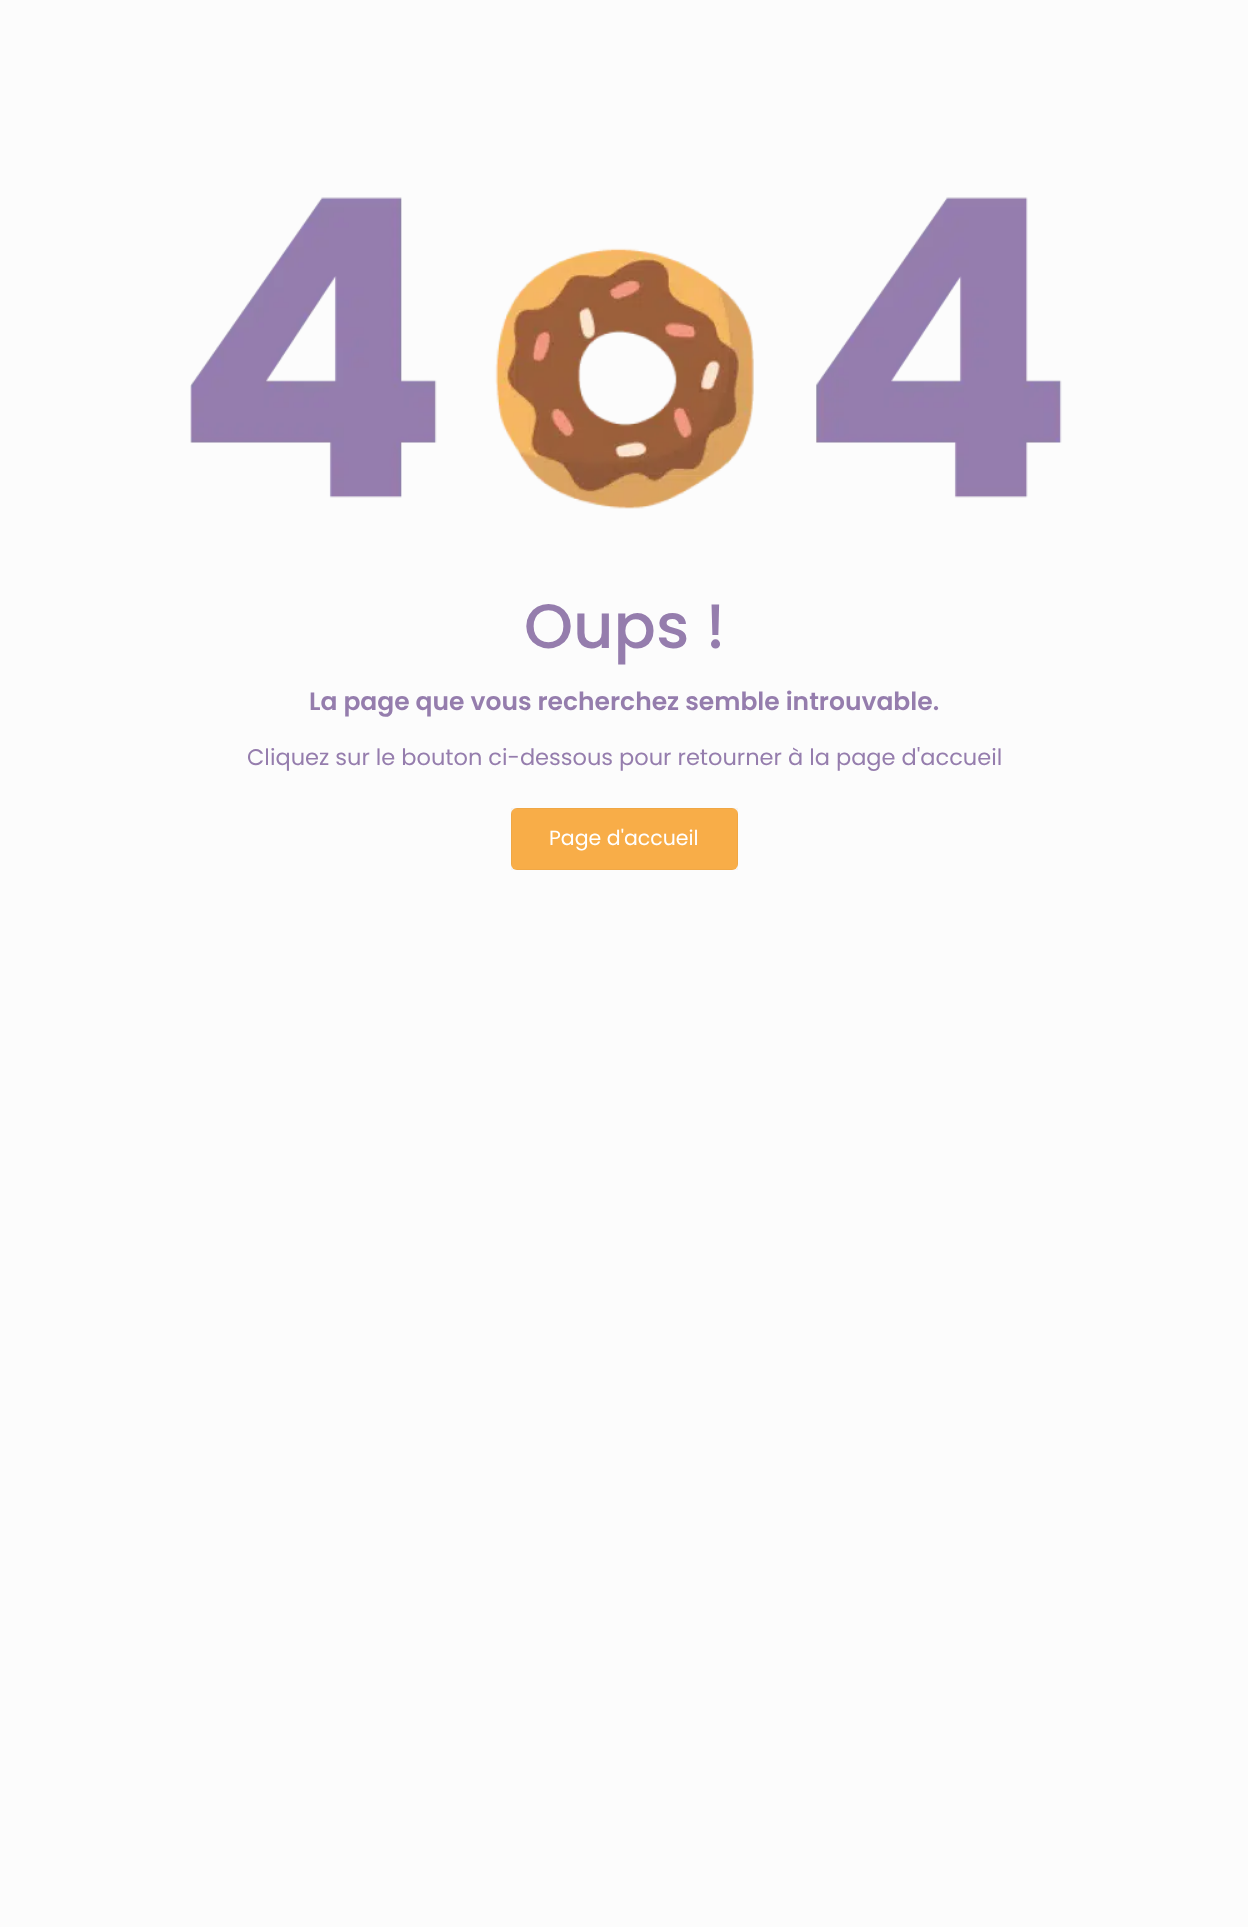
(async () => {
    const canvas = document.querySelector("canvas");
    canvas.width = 1248;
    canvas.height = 1927;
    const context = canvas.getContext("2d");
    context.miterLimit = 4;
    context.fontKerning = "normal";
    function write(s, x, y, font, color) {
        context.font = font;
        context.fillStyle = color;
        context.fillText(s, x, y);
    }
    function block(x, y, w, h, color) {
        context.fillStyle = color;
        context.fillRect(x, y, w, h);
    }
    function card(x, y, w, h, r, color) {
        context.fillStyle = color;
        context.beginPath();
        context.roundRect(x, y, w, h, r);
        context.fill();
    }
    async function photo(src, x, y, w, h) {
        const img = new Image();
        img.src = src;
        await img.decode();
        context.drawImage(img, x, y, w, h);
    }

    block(0, 0, 1248, 1927, "rgb(252, 252, 252)");
    await photo("media/1.png", 190, 197, 872, 312);
    write("Oups !", 524, 648, "500 62.5px Poppins", "rgb(149, 125, 173)");
    write("La page que vous recherchez semble introuvable.", 309, 710, "600 25px Poppins", "rgb(149, 125, 173)");
    write("Cliquez sur le bouton ci-dessous pour retourner à la page d'accueil", 247, 765, "22.5px Poppins", "rgb(149, 125, 173)");
    card(511, 808, 227, 62, 6, "rgb(248, 173, 72)");
    context.strokeStyle = "rgba(0, 0, 0, 0.03)";
    context.strokeRect(511.5, 808.5, 226, 61);
    write("Page d'accueil", 549, 845, "20.5px Poppins", "rgb(255, 255, 255)");
})();
